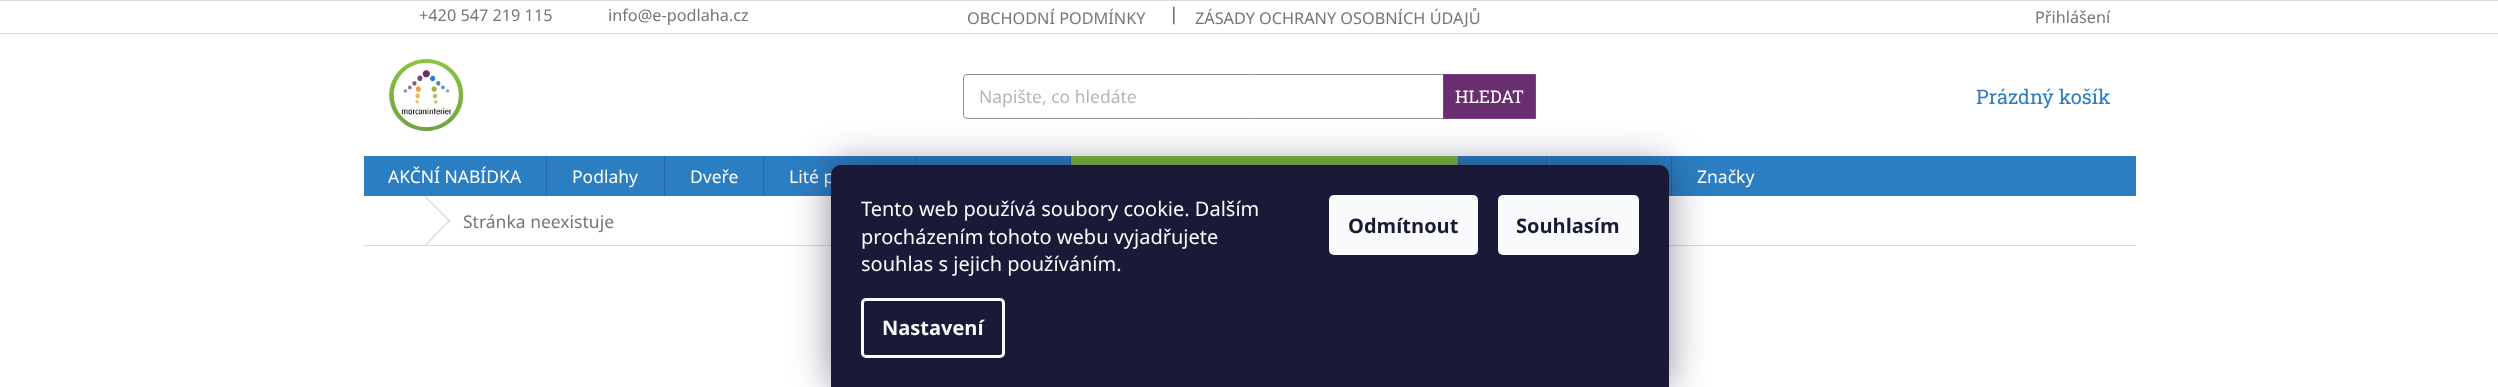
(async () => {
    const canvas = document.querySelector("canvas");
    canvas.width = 2498;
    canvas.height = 387;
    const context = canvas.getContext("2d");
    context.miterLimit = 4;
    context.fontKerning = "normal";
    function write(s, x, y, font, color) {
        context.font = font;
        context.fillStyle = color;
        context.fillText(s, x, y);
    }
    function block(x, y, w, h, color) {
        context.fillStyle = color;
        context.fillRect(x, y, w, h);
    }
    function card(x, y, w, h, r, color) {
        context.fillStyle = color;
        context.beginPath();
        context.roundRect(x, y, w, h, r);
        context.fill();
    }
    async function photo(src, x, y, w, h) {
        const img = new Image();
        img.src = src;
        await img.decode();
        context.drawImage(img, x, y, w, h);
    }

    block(0, 0, 2498, 387, "rgb(255, 255, 255)");
    block(0, 0, 2498, 1, "rgb(218, 218, 218)");
    block(0, 33, 2498, 1, "rgb(218, 218, 218)");
    write("+420 547 219 115", 419, 21, "16.25px Noto Sans", "rgb(118, 118, 118)");
    write("info@e-podlaha.cz", 608, 21, "16.25px Noto Sans", "rgb(118, 118, 118)");
    write("OBCHODNÍ PODMÍNKY", 967, 24, "16.25px Noto Sans", "rgb(118, 118, 118)");
    write("|", 1169, 20, "17.5px Noto Sans", "rgb(77, 77, 77)");
    write("ZÁSADY OCHRANY OSOBNÍCH ÚDAJŮ", 1195, 24, "16.25px Noto Sans", "rgb(118, 118, 118)");
    write("Přihlášení", 2035, 23, "16.25px Noto Sans", "rgb(118, 118, 118)");
    await photo("media/1.png", 388, 58, 76, 74);
    context.beginPath();
    context.roundRect(963.5, 74.5, 572, 44, 3.5);
    context.strokeStyle = "rgb(145, 145, 145)";
    context.stroke();
    write("Napište, co hledáte", 979, 103, "17.5px Noto Sans", "rgb(182, 182, 182)");
    context.fillStyle = "rgb(105, 46, 111)";
    context.beginPath();
    context.rect(1443.5, 74.5, 92, 44);
    context.fill();
    context.strokeStyle = "rgb(122, 69, 128)";
    context.stroke();
    write("HLEDAT", 1455, 103, "17.5px Roboto Slab", "rgb(255, 255, 255)");
    write("Prázdný košík", 1976, 104, "20px Roboto Slab", "rgb(43, 126, 193)");
    block(364, 156, 1772, 40, "rgb(43, 126, 193)");
    block(915, 156, 1, 9, "rgb(36, 106, 163)");
    block(1070, 156, 1, 9, "rgb(36, 106, 163)");
    block(1071, 156, 387, 9, "rgb(131, 188, 65)");
    block(1458, 156, 1, 9, "rgb(36, 106, 163)");
    block(1546, 156, 1, 9, "rgb(36, 106, 163)");
    write("AKČNÍ NABÍDKA", 388, 183, "17.5px Noto Sans", "rgb(255, 255, 255)");
    block(546, 156, 1, 40, "rgb(36, 106, 163)");
    write("Podlahy", 572, 183, "17.5px Noto Sans", "rgb(255, 255, 255)");
    block(664, 156, 1, 40, "rgb(36, 106, 163)");
    write("Dveře", 690, 183, "17.5px Noto Sans", "rgb(255, 255, 255)");
    block(763, 156, 1, 40, "rgb(36, 106, 163)");
    write("Lité p", 789, 183, "17.5px Noto Sans", "rgb(255, 255, 255)");
    block(1671, 156, 1, 40, "rgb(36, 106, 163)");
    write("Značky", 1697, 183, "17.5px Noto Sans", "rgb(255, 255, 255)");
    block(364, 245, 1772, 1, "rgb(218, 218, 218)");
    context.beginPath();
    context.moveTo(424.5, 197);
    context.lineTo(425.5, 196);
    context.lineTo(450.5, 221);
    context.lineTo(449.5, 222);
    context.closePath();
    context.fill();
    context.beginPath();
    context.moveTo(449.5, 219.5);
    context.lineTo(450.5, 220.5);
    context.lineTo(425.5, 246);
    context.lineTo(424.5, 245);
    context.closePath();
    context.fill();
    write("Stránka neexistuje", 463, 228, "17.5px Noto Sans", "rgb(118, 118, 118)");
    context.fillStyle = "rgba(27, 25, 57, 0.5)";
    context.filter = "blur(19px)";
    context.beginPath();
    context.roundRect(831, 165, 838, 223, 10);
    context.fill();
    context.filter = "none";
    context.fillStyle = "rgb(26, 25, 55)";
    context.beginPath();
    context.moveTo(841, 165);
    context.lineTo(1659, 165);
    context.bezierCurveTo(1664.5, 165, 1669, 169.5, 1669, 175);
    context.lineTo(1669, 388);
    context.lineTo(831, 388);
    context.lineTo(831, 175);
    context.bezierCurveTo(831, 169.5, 835.5, 165, 841, 165);
    context.closePath();
    context.fill();
    write("Tento web používá soubory cookie. Dalším", 861, 216, "20px Noto Sans", "rgb(248, 250, 251)");
    write("procházením tohoto webu vyjadřujete", 861, 244, "20px Noto Sans", "rgb(248, 250, 251)");
    write("souhlas s jejich používáním.", 861, 271, "20px Noto Sans", "rgb(248, 250, 251)");
    context.beginPath();
    context.roundRect(862.5, 299.5, 141, 57, 3.5);
    context.strokeStyle = "rgb(248, 250, 251)";
    context.lineWidth = 3;
    context.stroke();
    write("Nastavení", 882, 335, "bold 20px Noto Sans", "rgb(248, 250, 251)");
    card(1329, 195, 149, 60, 5, "rgb(248, 250, 251)");
    write("Odmítnout", 1348, 233, "bold 20px Noto Sans", "rgb(26, 25, 55)");
    card(1498, 195, 141, 60, 5, "rgb(248, 250, 251)");
    write("Souhlasím", 1516, 233, "bold 20px Noto Sans", "rgb(26, 25, 55)");
})();
